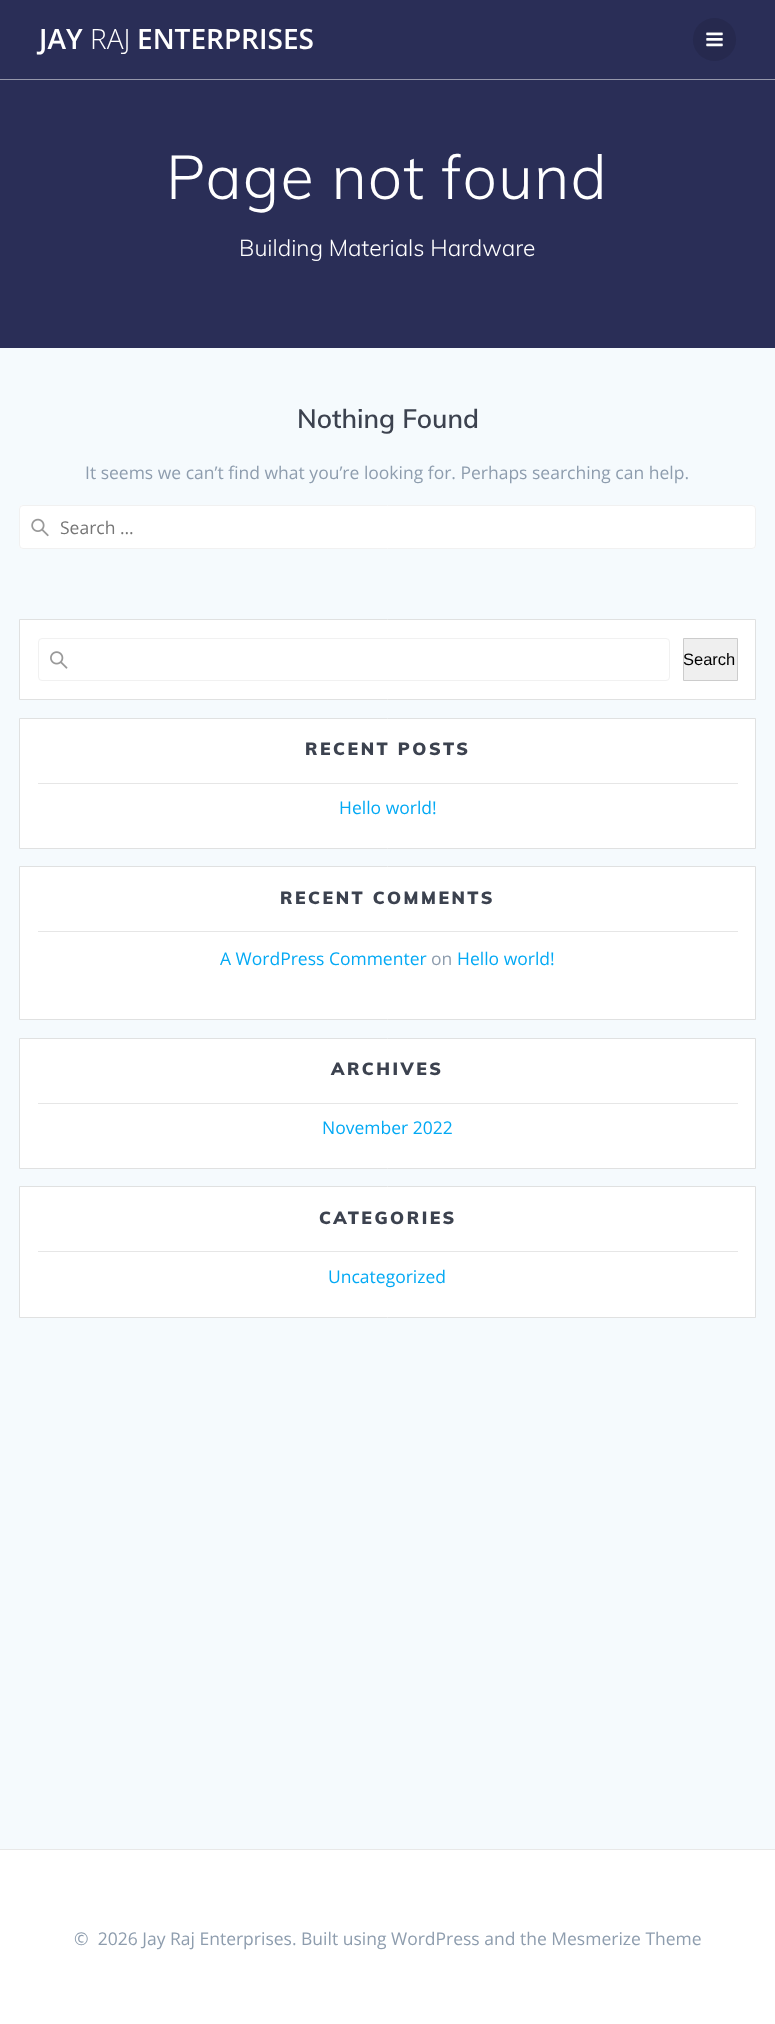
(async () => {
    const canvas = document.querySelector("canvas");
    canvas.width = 775;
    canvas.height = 2024;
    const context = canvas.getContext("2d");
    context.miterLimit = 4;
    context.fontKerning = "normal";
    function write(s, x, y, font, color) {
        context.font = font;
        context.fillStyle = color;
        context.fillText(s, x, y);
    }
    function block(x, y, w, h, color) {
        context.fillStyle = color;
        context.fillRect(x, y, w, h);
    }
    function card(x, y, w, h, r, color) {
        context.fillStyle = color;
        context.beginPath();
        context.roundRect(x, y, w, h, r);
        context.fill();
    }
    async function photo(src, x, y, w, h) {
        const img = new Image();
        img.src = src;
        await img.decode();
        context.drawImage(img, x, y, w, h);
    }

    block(0, 0, 775, 2024, "rgb(255, 255, 255)");
    block(0, 0, 775, 348, "rgb(42, 46, 87)");
    block(0, 79, 775, 1, "rgb(149, 151, 171)");
    write("JAY", 39, 49, "600 28px Open Sans", "rgb(255, 255, 255)");
    write("RAJ", 90, 49, "300 28px Open Sans", "rgb(255, 255, 255)");
    write("ENTERPRISES", 137, 49, "600 28px Open Sans", "rgb(255, 255, 255)");
    context.fillStyle = "rgb(38, 41, 78)";
    context.beginPath();
    context.arc(714.5, 39.5, 21.5, 0, Math.PI * 2);
    context.fill();
    await photo("media/1.png", 706, 32, 17, 15);
    context.letterSpacing = "1.1px";
    write("Page not found", 166, 199, "300 61.25px Muli", "rgb(255, 255, 255)");
    context.letterSpacing = "0px";
    write("Building Materials Hardware", 239, 256, "300 22.75px Muli", "rgb(255, 255, 255)");
    block(0, 348, 775, 1501, "rgb(245, 250, 253)");
    write("Nothing Found", 297, 428, "600 26.25px Muli", "rgb(60, 66, 79)");
    write("It seems we can’t find what you’re looking for. Perhaps searching can help.", 85, 479, "17.5px Open Sans", "rgb(142, 157, 174)");
    card(19, 505, 737, 44, 4, "rgb(255, 255, 255)");
    await photo("media/2.png", 31, 518, 18, 19);
    context.beginPath();
    context.roundRect(19.5, 505.5, 736, 43, 3.5);
    context.strokeStyle = "rgb(241, 241, 241)";
    context.stroke();
    write("Search …", 60, 534, "17.5px Open Sans", "rgb(117, 117, 117)");
    context.fillStyle = "rgb(255, 255, 255)";
    context.beginPath();
    context.rect(19.5, 619.5, 736, 80);
    context.fill();
    context.strokeStyle = "rgb(224, 225, 225)";
    context.stroke();
    await photo("media/3.png", 50, 651, 18, 18);
    context.beginPath();
    context.roundRect(38.5, 638.5, 631, 42, 3.5);
    context.strokeStyle = "rgb(241, 241, 241)";
    context.stroke();
    context.fillStyle = "rgb(239, 239, 239)";
    context.beginPath();
    context.rect(683.5, 638.5, 54, 42);
    context.fill();
    context.strokeStyle = "rgb(204, 204, 204)";
    context.stroke();
    write("Search", 683, 665, "16.5px Liberation Sans", "rgb(0, 0, 0)");
    context.fillStyle = "rgb(255, 255, 255)";
    context.beginPath();
    context.rect(19.5, 718.5, 736, 130);
    context.fill();
    context.strokeStyle = "rgb(224, 225, 225)";
    context.stroke();
    context.letterSpacing = "2.5px";
    write("RECENT POSTS", 305, 755, "900 17.5px Muli", "rgb(60, 66, 79)");
    block(38, 783, 700, 1, "rgb(230, 230, 230)");
    context.letterSpacing = "0px";
    write("Hello world!", 339, 814, "17.5px Open Sans", "rgb(3, 169, 244)");
    context.fillStyle = "rgb(255, 255, 255)";
    context.beginPath();
    context.rect(19.5, 866.5, 736, 153);
    context.fill();
    context.stroke();
    context.letterSpacing = "2.5px";
    write("RECENT COMMENTS", 280, 904, "900 17.5px Muli", "rgb(60, 66, 79)");
    block(38, 931, 700, 1, "rgb(230, 230, 230)");
    context.letterSpacing = "0px";
    write("A WordPress Commenter", 220, 965, "17.5px Open Sans", "rgb(3, 169, 244)");
    write("on", 431, 965, "17.5px Open Sans", "rgb(142, 157, 174)");
    write("Hello world!", 457, 965, "17.5px Open Sans", "rgb(3, 169, 244)");
    context.fillStyle = "rgb(255, 255, 255)";
    context.beginPath();
    context.rect(19.5, 1038.5, 736, 130);
    context.fill();
    context.stroke();
    context.letterSpacing = "2.5px";
    write("ARCHIVES", 331, 1075, "900 17.5px Muli", "rgb(60, 66, 79)");
    block(38, 1103, 700, 1, "rgb(230, 230, 230)");
    context.letterSpacing = "0px";
    write("November 2022", 322, 1134, "17.5px Open Sans", "rgb(3, 169, 244)");
    context.fillStyle = "rgb(255, 255, 255)";
    context.beginPath();
    context.rect(19.5, 1186.5, 736, 131);
    context.fill();
    context.stroke();
    context.letterSpacing = "2.5px";
    write("CATEGORIES", 319, 1224, "900 17.5px Muli", "rgb(60, 66, 79)");
    block(38, 1251, 700, 1, "rgb(230, 230, 230)");
    context.letterSpacing = "0px";
    write("Uncategorized", 328, 1283, "17.5px Open Sans", "rgb(3, 169, 244)");
    block(0, 1849, 775, 1, "rgb(232, 232, 232)");
    write("©  2026 Jay Raj Enterprises. Built using WordPress and the Mesmerize Theme", 74, 1945, "17.5px Open Sans", "rgb(142, 157, 174)");
})();
